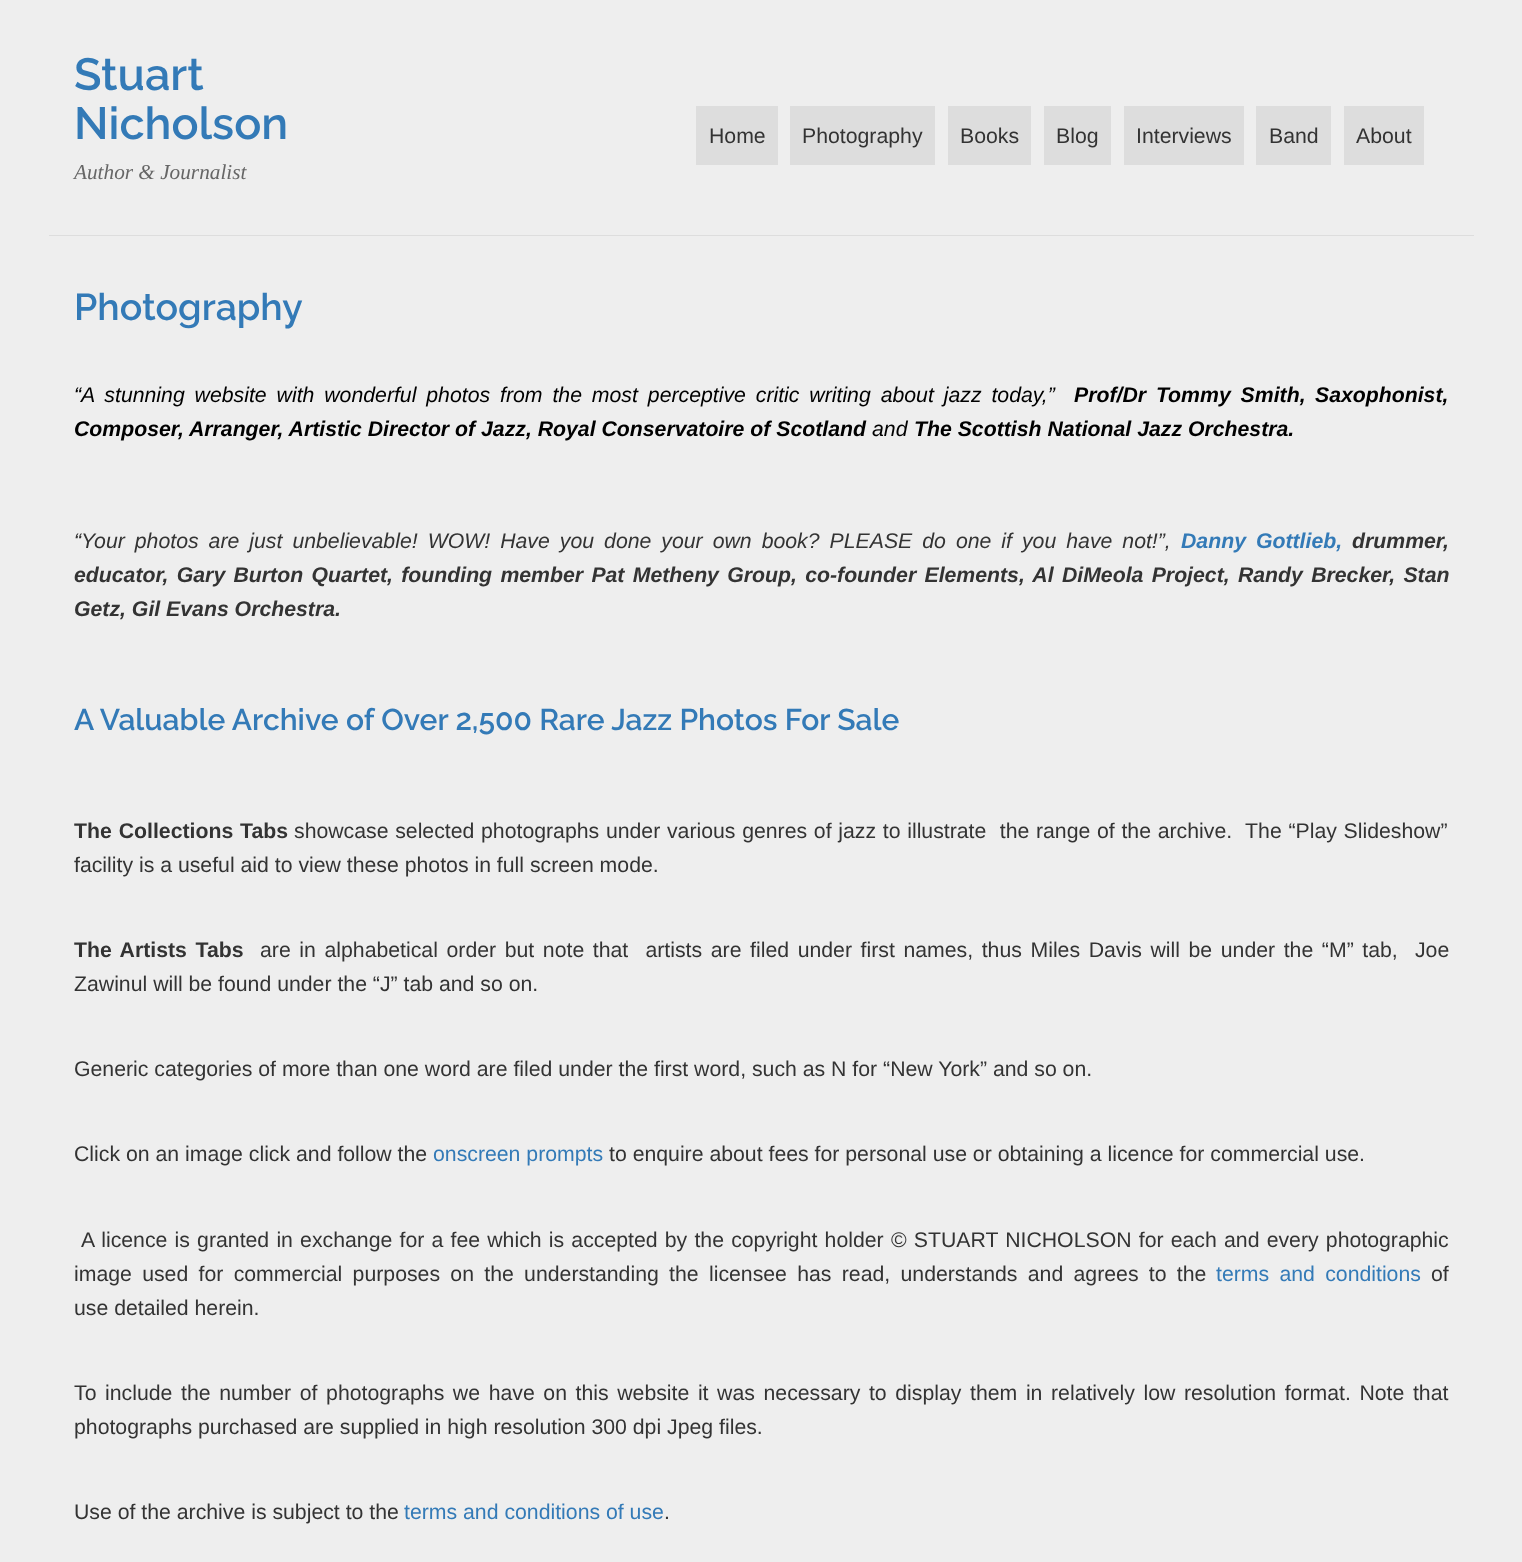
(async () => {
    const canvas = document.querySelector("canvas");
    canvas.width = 1522;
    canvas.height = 1562;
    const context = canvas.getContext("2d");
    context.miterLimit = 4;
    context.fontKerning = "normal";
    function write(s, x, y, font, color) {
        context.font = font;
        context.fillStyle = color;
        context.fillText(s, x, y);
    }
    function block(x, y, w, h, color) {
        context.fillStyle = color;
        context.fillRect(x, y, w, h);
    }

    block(0, 0, 1522, 1562, "rgb(238, 238, 238)");
    block(49, 235, 1425, 1, "rgb(221, 221, 221)");
    write("Stuart", 74, 90, "100 45px Raleway", "rgb(51, 122, 183)");
    write("Nicholson", 74, 139, "100 45px Raleway", "rgb(51, 122, 183)");
    write("Author & Journalist", 74, 179, "italic 21.25px Liberation Serif", "rgb(102, 102, 102)");
    block(696, 106, 82, 59, "rgb(221, 221, 221)");
    write("Home", 709, 143, "21.25px Liberation Sans", "rgb(51, 51, 51)");
    block(790, 106, 145, 59, "rgb(221, 221, 221)");
    write("Photography", 802, 143, "21.25px Liberation Sans", "rgb(51, 51, 51)");
    block(948, 106, 83, 59, "rgb(221, 221, 221)");
    write("Books", 960, 143, "21.25px Liberation Sans", "rgb(51, 51, 51)");
    block(1044, 106, 67, 59, "rgb(221, 221, 221)");
    write("Blog", 1056, 143, "21.25px Liberation Sans", "rgb(51, 51, 51)");
    block(1124, 106, 120, 59, "rgb(221, 221, 221)");
    write("Interviews", 1136, 143, "21.25px Liberation Sans", "rgb(51, 51, 51)");
    block(1256, 106, 75, 59, "rgb(221, 221, 221)");
    write("Band", 1269, 143, "21.25px Liberation Sans", "rgb(51, 51, 51)");
    block(1344, 106, 80, 59, "rgb(221, 221, 221)");
    write("About", 1356, 143, "21.25px Liberation Sans", "rgb(51, 51, 51)");
    write("Photography", 74, 320, "100 37.5px Raleway", "rgb(51, 122, 183)");
    context.wordSpacing = "4px";
    write("“A stunning website with wonderful photos from the most perceptive critic writing about jazz today,”", 74, 402, "italic 21.25px Liberation Sans", "rgb(0, 0, 0)");
    write("Prof/Dr Tommy Smith,", 1074, 402, "italic bold 21.25px Liberation Sans", "rgb(0, 0, 0)");
    context.wordSpacing = "0px";
    write("Saxophonist,", 1315, 402, "italic bold 21.25px Liberation Sans", "rgb(0, 0, 0)");
    write("Composer, Arranger, Artistic Director of Jazz, Royal Conservatoire of Scotland", 74, 436, "italic bold 21.25px Liberation Sans", "rgb(0, 0, 0)");
    write("and", 872, 436, "italic 21.25px Liberation Sans", "rgb(0, 0, 0)");
    write("The Scottish National Jazz Orchestra.", 914, 436, "italic bold 21.25px Liberation Sans", "rgb(0, 0, 0)");
    context.wordSpacing = "4.1px";
    write("“Your photos are just unbelievable! WOW! Have you done your own book? PLEASE do one if you have not!”,", 74, 548, "italic 21.25px Liberation Sans", "rgb(51, 51, 51)");
    write("Danny Gottlieb,", 1181, 548, "italic bold 21.25px Liberation Sans", "rgb(51, 122, 183)");
    context.wordSpacing = "0px";
    write("drummer,", 1352, 548, "italic bold 21.25px Liberation Sans", "rgb(51, 51, 51)");
    context.wordSpacing = "2.4px";
    write("educator, Gary Burton Quartet, founding member Pat Metheny Group, co-founder Elements, Al DiMeola Project, Randy Brecker, Stan", 74, 582, "italic bold 21.25px Liberation Sans", "rgb(51, 51, 51)");
    context.wordSpacing = "0px";
    write("Getz, Gil Evans Orchestra.", 74, 616, "italic bold 21.25px Liberation Sans", "rgb(51, 51, 51)");
    write("A Valuable Archive of Over 2,500 Rare Jazz Photos For Sale", 74, 730, "100 30px Raleway", "rgb(51, 122, 183)");
    context.wordSpacing = "1px";
    write("The Collections Tabs", 74, 838, "bold 21.25px Liberation Sans", "rgb(51, 51, 51)");
    context.wordSpacing = "0.8px";
    write("showcase selected photographs under various genres of jazz to illustrate  the range of the archive.  The “Play Slideshow”", 294, 838, "21.25px Liberation Sans", "rgb(51, 51, 51)");
    context.wordSpacing = "0px";
    write("facility is a useful aid to view these photos in full screen mode.", 74, 872, "21.25px Liberation Sans", "rgb(51, 51, 51)");
    context.wordSpacing = "2.7px";
    write("The Artists Tabs", 74, 957, "bold 21.25px Liberation Sans", "rgb(51, 51, 51)");
    write("are in alphabetical order but note that  artists are filed under first names, thus Miles Davis will be under the “M” tab,  Joe", 260, 957, "21.25px Liberation Sans", "rgb(51, 51, 51)");
    context.wordSpacing = "0px";
    write("Zawinul will be found under the “J” tab and so on.", 74, 991, "21.25px Liberation Sans", "rgb(51, 51, 51)");
    write("Generic categories of more than one word are filed under the first word, such as N for “New York” and so on.", 74, 1076, "21.25px Liberation Sans", "rgb(51, 51, 51)");
    write("Click on an image click and follow the", 74, 1161, "21.25px Liberation Sans", "rgb(51, 51, 51)");
    write("onscreen prompts", 433, 1161, "21.25px Liberation Sans", "rgb(51, 122, 183)");
    write("to enquire about fees for personal use or obtaining a licence for commercial use.", 609, 1161, "21.25px Liberation Sans", "rgb(51, 51, 51)");
    context.wordSpacing = "1.3px";
    write("A licence is granted in exchange for a fee which is accepted by the copyright holder © STUART NICHOLSON for each and every photographic", 81, 1247, "21.25px Liberation Sans", "rgb(51, 51, 51)");
    context.wordSpacing = "4.4px";
    write("image used for commercial purposes on the understanding the licensee has read, understands and agrees to the", 74, 1281, "21.25px Liberation Sans", "rgb(51, 51, 51)");
    write("terms and conditions", 1216, 1281, "21.25px Liberation Sans", "rgb(51, 122, 183)");
    context.wordSpacing = "0px";
    write("of", 1431, 1281, "21.25px Liberation Sans", "rgb(51, 51, 51)");
    write("use detailed herein.", 74, 1315, "21.25px Liberation Sans", "rgb(51, 51, 51)");
    context.wordSpacing = "2.7px";
    write("To include the number of photographs we have on this website it was necessary to display them in relatively low resolution format. Note that", 74, 1400, "21.25px Liberation Sans", "rgb(51, 51, 51)");
    context.wordSpacing = "0px";
    write("photographs purchased are supplied in high resolution 300 dpi Jpeg files.", 74, 1434, "21.25px Liberation Sans", "rgb(51, 51, 51)");
    write("Use of the archive is subject to the", 74, 1519, "21.25px Liberation Sans", "rgb(51, 51, 51)");
    write("terms and conditions of use", 404, 1519, "21.25px Liberation Sans", "rgb(51, 122, 183)");
    write(".", 664, 1519, "21.25px Liberation Sans", "rgb(51, 51, 51)");
})();
